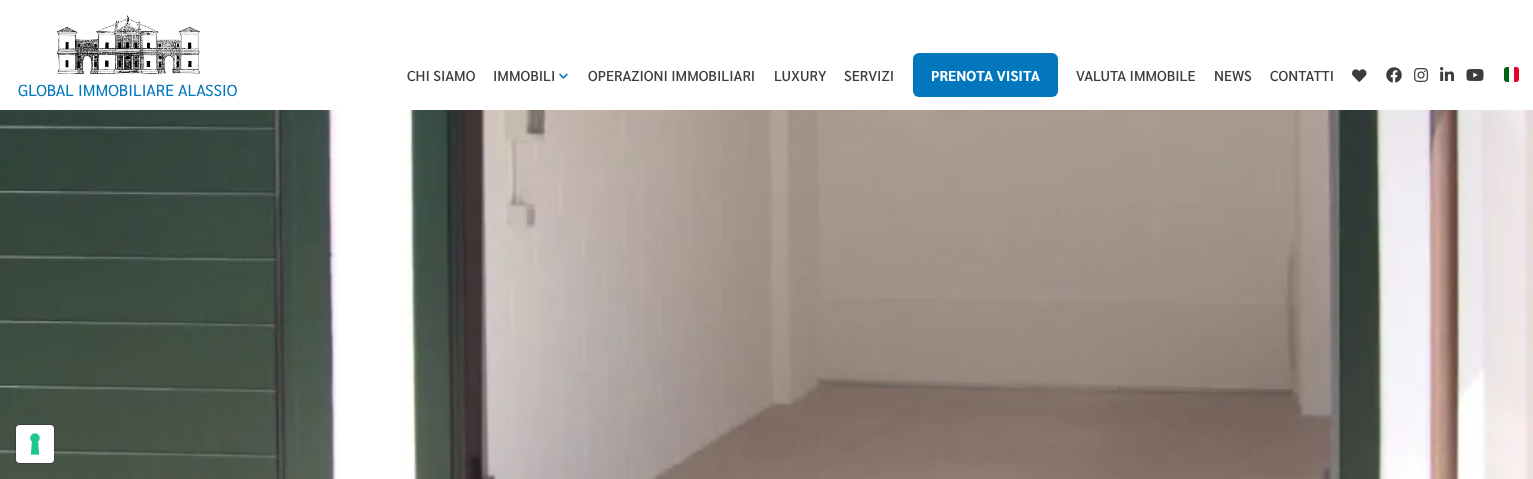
(async () => {
    const canvas = document.querySelector("canvas");
    canvas.width = 1533;
    canvas.height = 479;
    const context = canvas.getContext("2d");
    context.miterLimit = 4;
    context.fontKerning = "normal";
    function write(s, x, y, font, color) {
        context.font = font;
        context.fillStyle = color;
        context.fillText(s, x, y);
    }
    function block(x, y, w, h, color) {
        context.fillStyle = color;
        context.fillRect(x, y, w, h);
    }
    function card(x, y, w, h, r, color) {
        context.fillStyle = color;
        context.beginPath();
        context.roundRect(x, y, w, h, r);
        context.fill();
    }
    async function photo(src, x, y, w, h) {
        const img = new Image();
        img.src = src;
        await img.decode();
        context.drawImage(img, x, y, w, h);
    }

    block(0, 0, 1533, 479, "rgb(255, 255, 255)");
    write("CHI SIAMO", 407, 81, "500 14.4px Sarabun", "rgb(60, 60, 60)");
    write("IMMOBILI", 493, 81, "500 14.4px Sarabun", "rgb(60, 60, 60)");
    await photo("media/1.png", 559, 73, 9, 6);
    write("OPERAZIONI IMMOBILIARI", 588, 81, "500 14.4px Sarabun", "rgb(60, 60, 60)");
    write("LUXURY", 774, 81, "500 14.4px Sarabun", "rgb(60, 60, 60)");
    write("SERVIZI", 844, 81, "500 14.4px Sarabun", "rgb(60, 60, 60)");
    card(913, 53, 145, 44, 6, "rgb(2, 119, 190)");
    write("PRENOTA VISITA", 931, 81, "bold 14.4px Sarabun", "rgb(255, 255, 255)");
    write("VALUTA IMMOBILE", 1076, 81, "500 14.4px Sarabun", "rgb(60, 60, 60)");
    write("NEWS", 1214, 81, "500 14.4px Sarabun", "rgb(60, 60, 60)");
    write("CONTATTI", 1270, 81, "500 14.4px Sarabun", "rgb(60, 60, 60)");
    await photo("media/2.png", 1352, 69, 15, 13);
    await photo("media/3.png", 1386, 67, 16, 16);
    await photo("media/4.png", 1414, 68, 15, 14);
    await photo("media/5.png", 1440, 67, 14, 14);
    await photo("media/6.png", 1466, 69, 18, 12);
    await photo("media/7.png", 1504, 67, 15, 15);
    await photo("media/8.png", 56, 15, 144, 59);
    write("GLOBAL IMMOBILIARE ALASSIO", 18, 96, "16px Sarabun", "rgb(0, 118, 190)");
    await photo("media/9.png", 0, 110, 1533, 369);
    context.beginPath();
    context.roundRect(15.5, 424.5, 39, 39, 4.5);
    context.strokeStyle = "rgba(0, 0, 0, 0.15)";
    context.stroke();
    card(16, 425, 38, 38, 4, "rgb(255, 255, 255)");
    await photo("media/10.png", 30, 433, 10, 22);
})();
